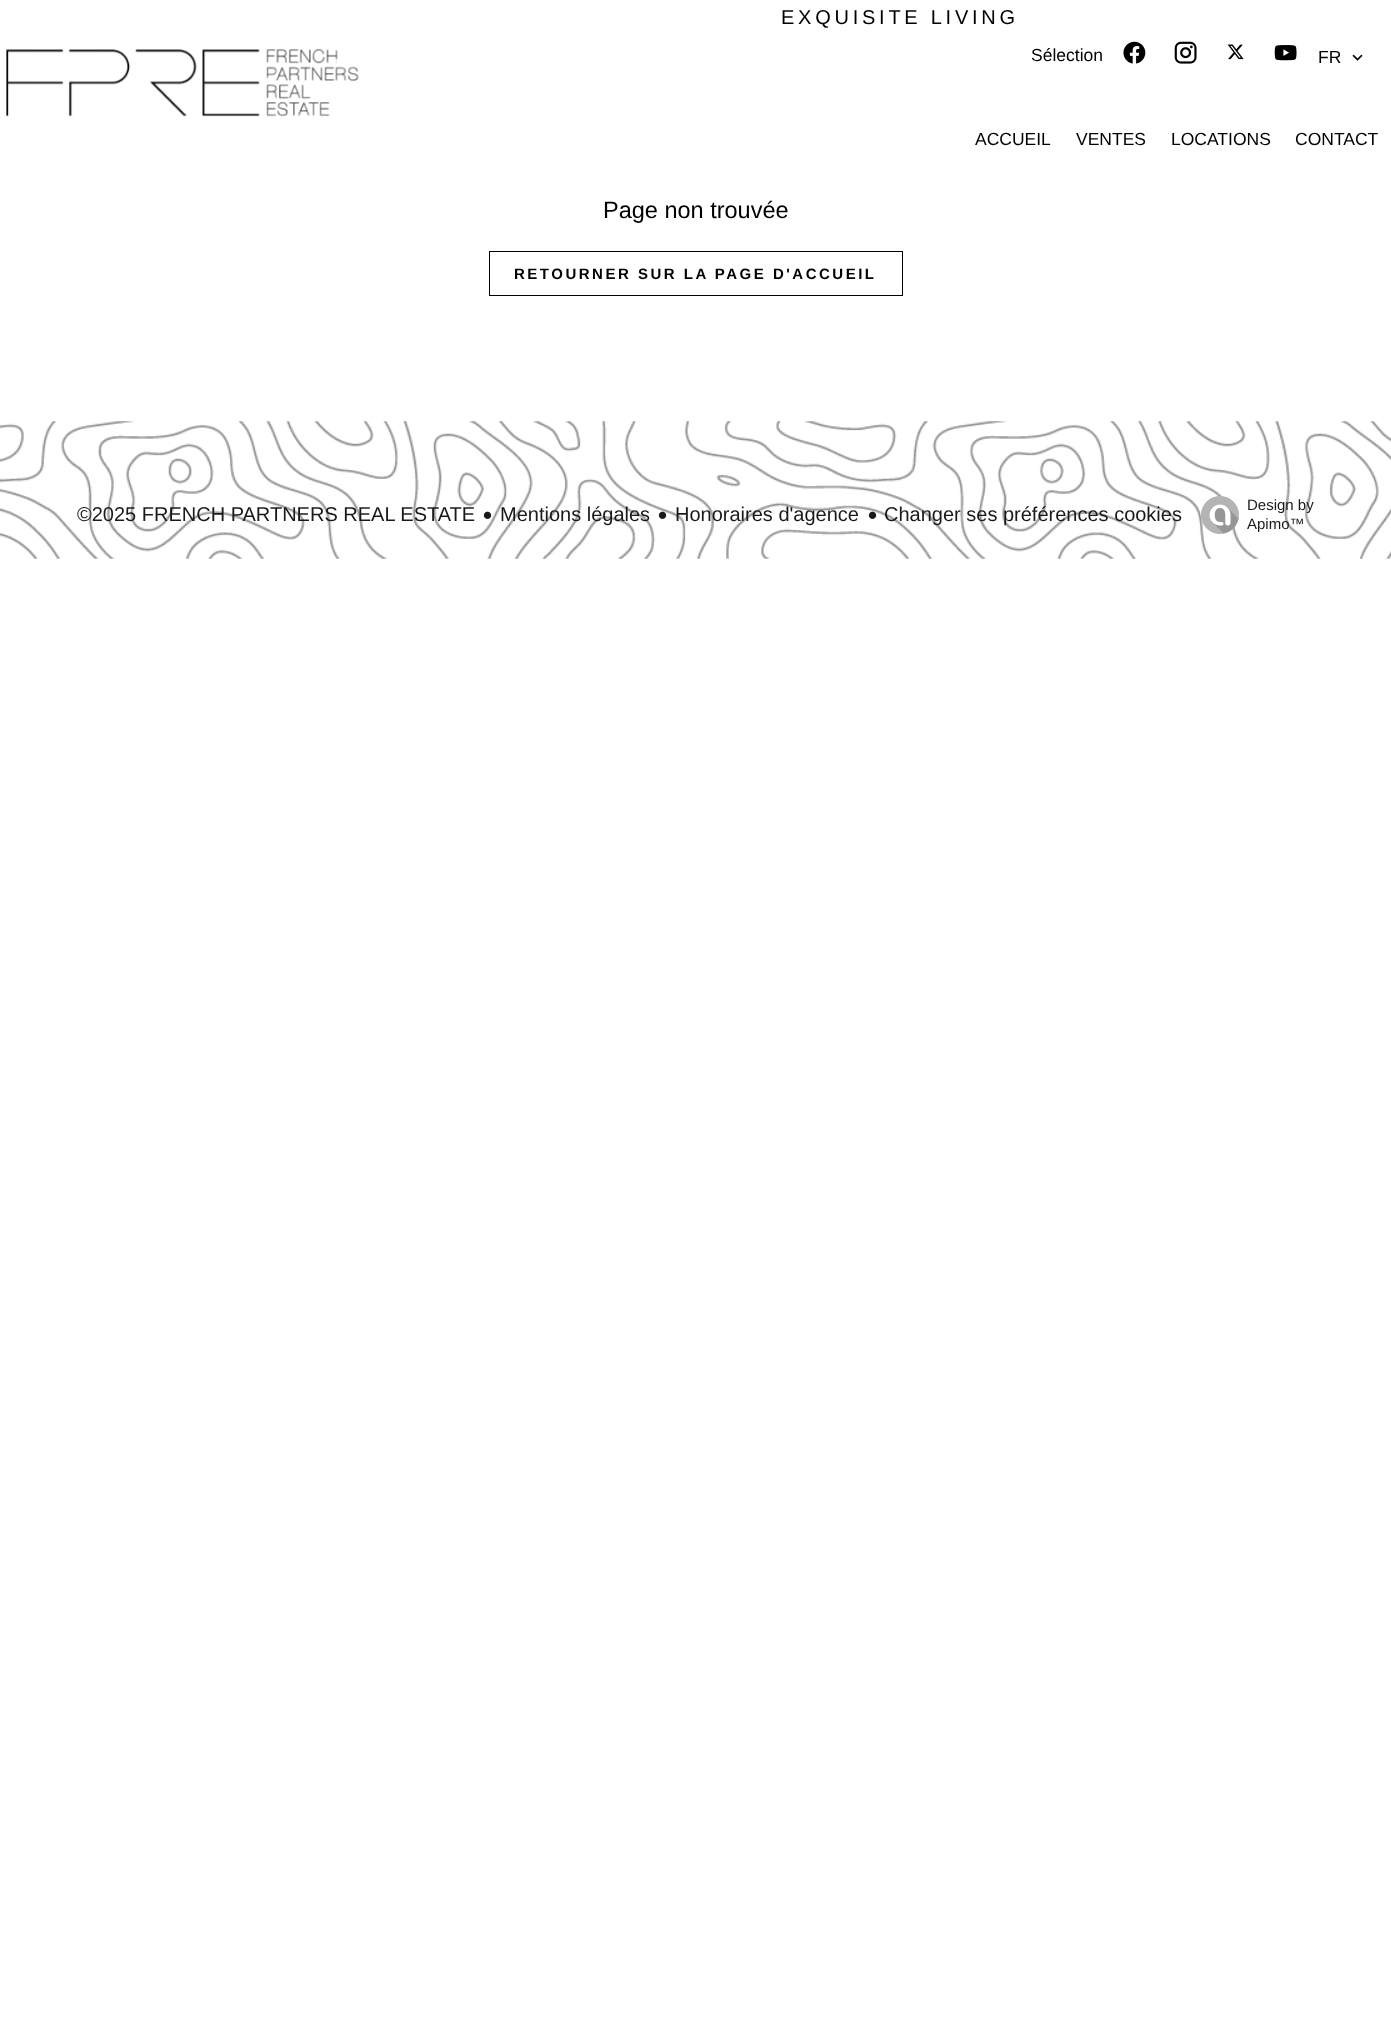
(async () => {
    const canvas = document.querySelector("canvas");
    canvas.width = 1391;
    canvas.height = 2035;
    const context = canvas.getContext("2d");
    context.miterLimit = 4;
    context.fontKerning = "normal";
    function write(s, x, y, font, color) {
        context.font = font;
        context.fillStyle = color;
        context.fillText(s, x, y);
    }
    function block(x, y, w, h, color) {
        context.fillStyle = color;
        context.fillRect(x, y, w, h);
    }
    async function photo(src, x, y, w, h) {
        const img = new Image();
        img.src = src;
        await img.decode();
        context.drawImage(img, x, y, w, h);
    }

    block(0, 0, 1391, 2035, "rgb(255, 255, 255)");
    await photo("media/1.png", 6, 49, 353, 68);
    context.letterSpacing = "3.75px";
    write("EXQUISITE LIVING", 781, 24, "20px Liberation Sans", "rgb(0, 0, 0)");
    context.letterSpacing = "0px";
    write("Sélection", 1031, 61, "17.5px Liberation Sans", "rgb(0, 0, 0)");
    await photo("media/2.png", 1123, 41, 23, 23);
    await photo("media/3.png", 1174, 41, 23, 23);
    await photo("media/4.png", 1227, 44, 17, 16);
    await photo("media/5.png", 1274, 45, 23, 16);
    write("FR", 1318, 63, "17.5px Liberation Sans", "rgb(0, 0, 0)");
    await photo("media/6.png", 1352, 54, 11, 7);
    write("ACCUEIL", 975, 145, "17.5px Liberation Sans", "rgb(0, 0, 0)");
    write("VENTES", 1076, 145, "17.5px Liberation Sans", "rgb(0, 0, 0)");
    write("LOCATIONS", 1171, 145, "17.5px Liberation Sans", "rgb(0, 0, 0)");
    write("CONTACT", 1295, 145, "17.5px Liberation Sans", "rgb(0, 0, 0)");
    write("Page non trouvée", 603, 218, "23.5px Liberation Sans", "rgb(0, 0, 0)");
    context.strokeStyle = "rgb(0, 0, 0)";
    context.strokeRect(489.5, 251.5, 413, 44);
    context.letterSpacing = "2.5px";
    write("RETOURNER SUR LA PAGE D'ACCUEIL", 514, 279, "bold 15px Liberation Sans", "rgb(0, 0, 0)");
    await photo("media/7.png", 0, 421, 1391, 138);
    context.letterSpacing = "0px";
    write("©2025 FRENCH PARTNERS REAL ESTATE", 77, 521, "20px Liberation Sans", "rgb(25, 25, 25)");
    await photo("media/8.png", 483, 511, 9, 8);
    write("Mentions légales", 500, 521, "20px Liberation Sans", "rgb(25, 25, 25)");
    await photo("media/9.png", 658, 511, 9, 8);
    write("Honoraires d'agence", 675, 521, "20px Liberation Sans", "rgb(25, 25, 25)");
    await photo("media/10.png", 868, 511, 9, 8);
    write("Changer ses préférences cookies", 884, 521, "20px Liberation Sans", "rgb(25, 25, 25)");
    await photo("media/11.png", 1201, 496, 38, 38);
    write("Design by", 1247, 510, "15px Liberation Sans", "rgb(25, 25, 25)");
    write("Apimo™", 1247, 529, "15px Liberation Sans", "rgb(25, 25, 25)");
})();
